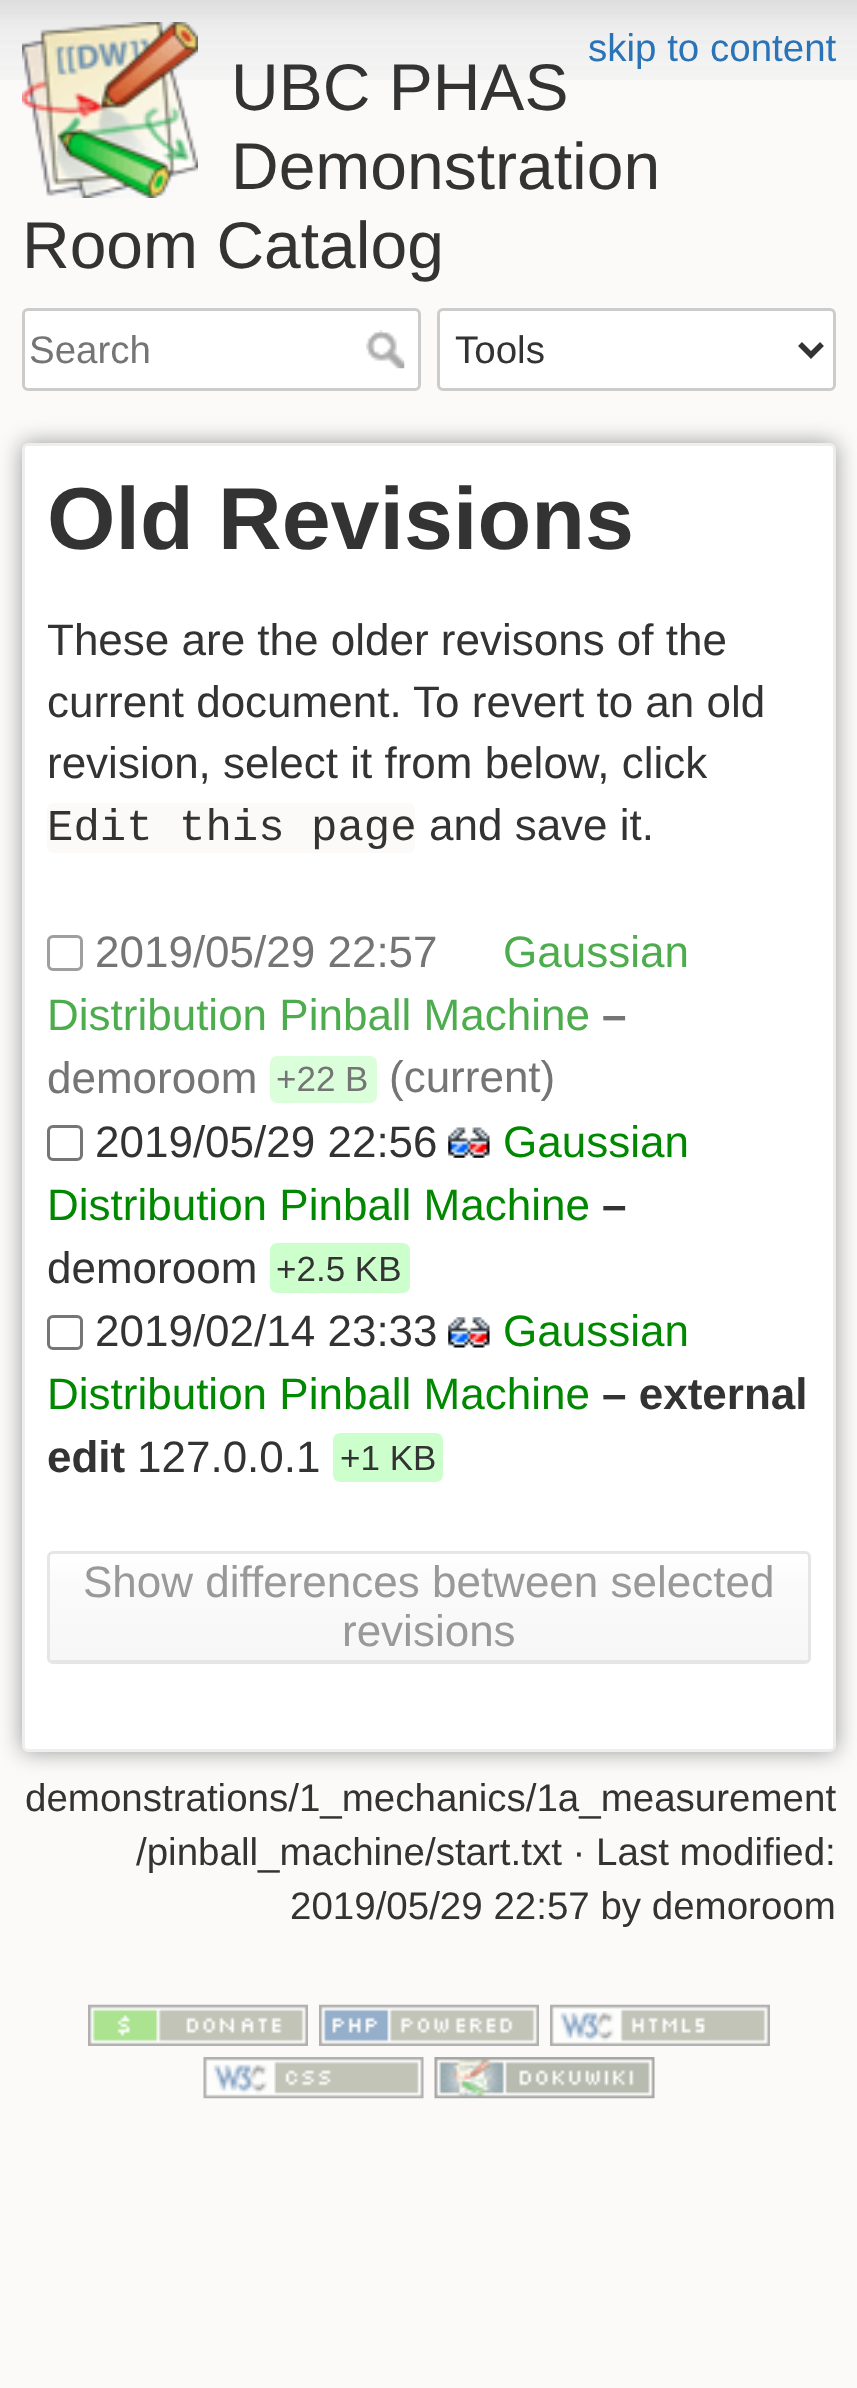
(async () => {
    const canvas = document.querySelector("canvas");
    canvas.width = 857;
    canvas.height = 2388;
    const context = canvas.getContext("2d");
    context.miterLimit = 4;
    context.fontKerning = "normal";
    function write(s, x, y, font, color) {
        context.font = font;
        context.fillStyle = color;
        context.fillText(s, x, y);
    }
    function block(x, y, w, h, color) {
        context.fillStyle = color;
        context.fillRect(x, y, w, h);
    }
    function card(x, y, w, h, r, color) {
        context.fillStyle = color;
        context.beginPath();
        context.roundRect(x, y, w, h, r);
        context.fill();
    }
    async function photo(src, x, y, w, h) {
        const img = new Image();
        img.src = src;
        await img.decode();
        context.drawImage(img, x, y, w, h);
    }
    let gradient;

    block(0, 0, 857, 2388, "rgb(251, 250, 249)");
    await photo("media/1.png", 0, 0, 857, 80);
    write("skip to content", 588, 61, "38.5px Liberation Sans", "rgb(43, 115, 183)");
    await photo("media/2.png", 22, 22, 176, 176);
    write("UBC PHAS", 231, 110, "66px Liberation Sans", "rgb(51, 51, 51)");
    write("Demonstration", 231, 189, "66px Liberation Sans", "rgb(51, 51, 51)");
    write("Room Catalog", 22, 268, "66px Liberation Sans", "rgb(51, 51, 51)");
    context.fillStyle = "rgb(255, 255, 255)";
    context.beginPath();
    context.roundRect(23.5, 309.5, 396, 80, 4.5);
    context.fill();
    context.strokeStyle = "rgb(204, 204, 204)";
    context.lineWidth = 3;
    context.stroke();
    write("Search", 29, 363, "38.5px Liberation Sans", "rgb(117, 117, 117)");
    await photo("media/3.png", 366, 330, 39, 39);
    context.fillStyle = "rgb(255, 255, 255)";
    context.beginPath();
    context.roundRect(438.5, 309.5, 396, 80, 4.5);
    context.fill();
    context.stroke();
    context.beginPath();
    context.moveTo(800, 344);
    context.lineTo(811, 355);
    context.lineTo(822, 344);
    context.strokeStyle = "rgb(51, 51, 51)";
    context.lineWidth = 5.5;
    context.stroke();
    write("Tools", 455, 363, "38.5px Liberation Sans", "rgb(51, 51, 51)");
    context.fillStyle = "rgb(153, 153, 153)";
    context.filter = "blur(11px)";
    context.beginPath();
    context.roundRect(22, 443, 814, 1309, 6);
    context.fill();
    context.filter = "none";
    context.fillStyle = "rgb(255, 255, 255)";
    context.beginPath();
    context.roundRect(23.5, 444.5, 811, 1306, 4.5);
    context.fill();
    context.strokeStyle = "rgb(238, 238, 238)";
    context.lineWidth = 3;
    context.stroke();
    write("Old Revisions", 47, 549, "bold 88px Liberation Sans", "rgb(51, 51, 51)");
    write("These are the older revisons of the", 47, 655, "44px Liberation Sans", "rgb(51, 51, 51)");
    write("current document. To revert to an old", 47, 717, "44px Liberation Sans", "rgb(51, 51, 51)");
    write("revision, select it from below, click", 47, 778, "44px Liberation Sans", "rgb(51, 51, 51)");
    card(47, 803, 368, 50, 6, "rgb(251, 250, 249)");
    write("Edit this page", 47, 840, "44px Liberation Mono", "rgb(51, 51, 51)");
    write("and save it.", 429, 840, "44px Liberation Sans", "rgb(51, 51, 51)");
    context.beginPath();
    context.roundRect(48.5, 936.5, 33, 33, 4.5);
    context.strokeStyle = "rgb(159, 159, 159)";
    context.stroke();
    write("2019/05/29 22:57", 95, 967, "44px Liberation Sans", "rgb(117, 117, 117)");
    write("Gaussian", 503, 967, "44px Liberation Sans", "rgb(77, 172, 77)");
    write("Distribution Pinball Machine", 47, 1030, "44px Liberation Sans", "rgb(77, 172, 77)");
    write("–", 602, 1030, "bold 44px Liberation Sans", "rgb(117, 117, 117)");
    write("demoroom", 47, 1093, "44px Liberation Sans", "rgb(117, 117, 117)");
    card(270, 1056, 107, 47, 7, "rgb(219, 255, 219)");
    write("+22 B", 276, 1091, "35px Liberation Sans", "rgb(117, 117, 117)");
    write("(current)", 389, 1092, "44px Liberation Sans", "rgb(117, 117, 117)");
    context.beginPath();
    context.roundRect(48.5, 1126.5, 33, 33, 4.5);
    context.strokeStyle = "rgb(118, 118, 118)";
    context.stroke();
    write("2019/05/29 22:56", 95, 1157, "44px Liberation Sans", "rgb(51, 51, 51)");
    await photo("media/4.png", 448, 1127, 42, 31);
    write("Gaussian", 503, 1157, "44px Liberation Sans", "rgb(0, 136, 0)");
    write("Distribution Pinball Machine", 47, 1220, "44px Liberation Sans", "rgb(0, 136, 0)");
    write("–", 602, 1220, "bold 44px Liberation Sans", "rgb(51, 51, 51)");
    write("demoroom", 47, 1283, "44px Liberation Sans", "rgb(51, 51, 51)");
    card(270, 1243, 140, 50, 7, "rgb(204, 255, 204)");
    write("+2.5 KB", 276, 1281, "35px Liberation Sans", "rgb(51, 51, 51)");
    context.beginPath();
    context.roundRect(48.5, 1316.5, 33, 32, 4.5);
    context.stroke();
    write("2019/02/14 23:33", 95, 1346, "44px Liberation Sans", "rgb(51, 51, 51)");
    await photo("media/5.png", 448, 1317, 42, 31);
    write("Gaussian", 503, 1346, "44px Liberation Sans", "rgb(0, 136, 0)");
    write("Distribution Pinball Machine", 47, 1409, "44px Liberation Sans", "rgb(0, 136, 0)");
    write("– external", 602, 1409, "bold 44px Liberation Sans", "rgb(51, 51, 51)");
    write("edit", 47, 1472, "bold 44px Liberation Sans", "rgb(51, 51, 51)");
    write("127.0.0.1", 137, 1472, "44px Liberation Sans", "rgb(51, 51, 51)");
    card(333, 1433, 110, 49, 7, "rgb(204, 255, 204)");
    write("+1 KB", 340, 1470, "35px Liberation Sans", "rgb(51, 51, 51)");
    context.save();
    context.beginPath();
    context.roundRect(47, 1551, 764, 113, 6);
    context.clip();
    gradient = context.createLinearGradient(429, 1554, 429, 1661);
    gradient.addColorStop(0, "rgb(255, 255, 255)");
    gradient.addColorStop(0.3, "rgb(250, 250, 250)");
    gradient.addColorStop(0.99, "rgb(247, 247, 247)");
    gradient.addColorStop(0.99, "rgb(230, 230, 230)");
    context.fillStyle = gradient;
    context.fillRect(47, 1554, 764, 107);
    context.restore();
    context.beginPath();
    context.roundRect(48.5, 1552.5, 761, 110, 4.5);
    context.strokeStyle = "rgb(230, 230, 230)";
    context.stroke();
    write("Show differences between selected", 83, 1597, "44px Liberation Sans", "rgb(153, 153, 153)");
    write("revisions", 342, 1646, "44px Liberation Sans", "rgb(153, 153, 153)");
    write("demonstrations/1_mechanics/1a_measurement", 25, 1811, "38.5px Liberation Sans", "rgb(51, 51, 51)");
    write("/pinball_machine/start.txt · Last modified:", 136, 1865, "38.5px Liberation Sans", "rgb(51, 51, 51)");
    write("2019/05/29 22:57 by demoroom", 290, 1919, "38.5px Liberation Sans", "rgb(51, 51, 51)");
    await photo("media/6.png", 88, 2004, 220, 42);
    await photo("media/7.png", 319, 2004, 220, 42);
    await photo("media/8.png", 550, 2004, 220, 42);
    await photo("media/9.png", 203, 2057, 221, 42);
    await photo("media/10.png", 434, 2057, 221, 42);
})();
